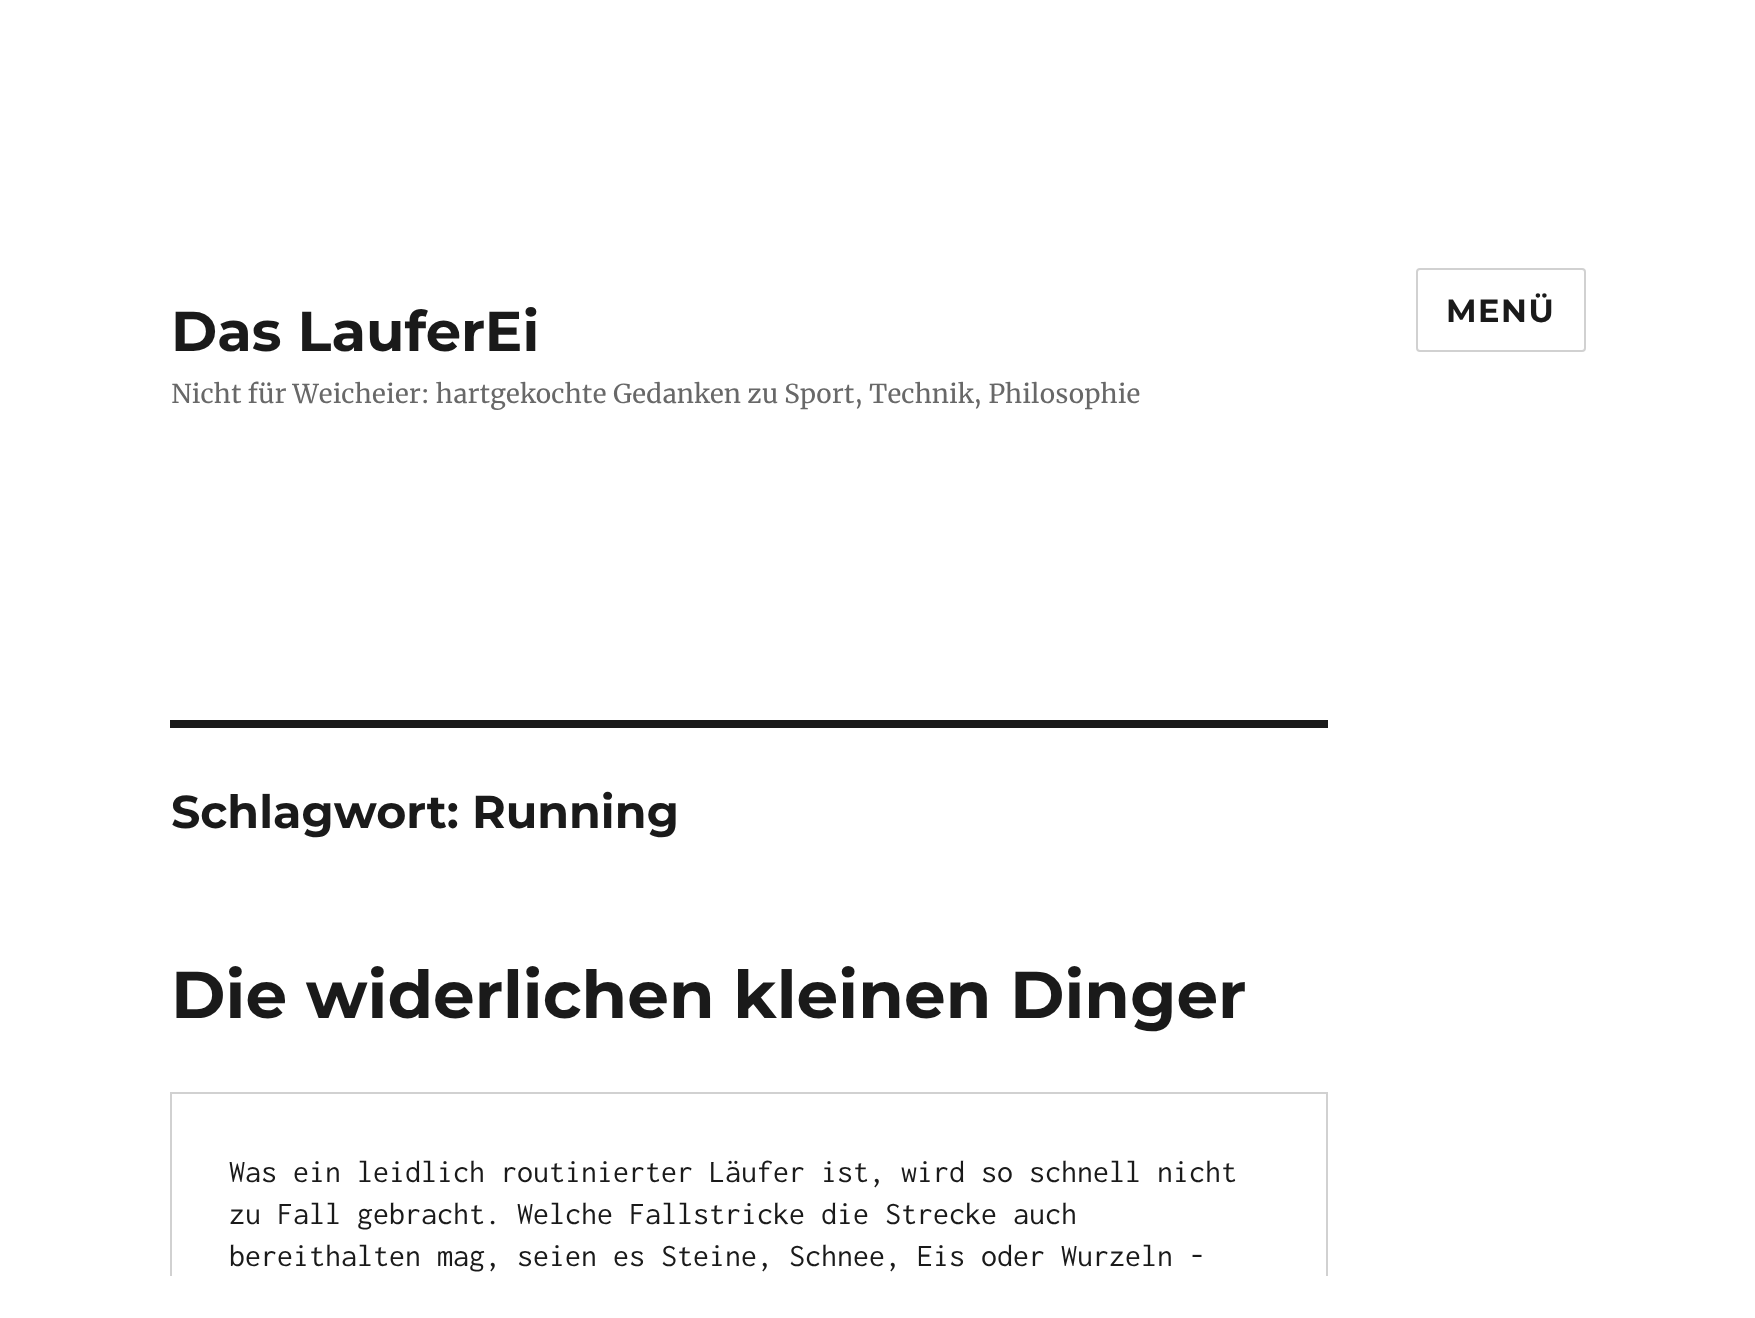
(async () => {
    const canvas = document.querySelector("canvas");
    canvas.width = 1755;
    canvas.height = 1318;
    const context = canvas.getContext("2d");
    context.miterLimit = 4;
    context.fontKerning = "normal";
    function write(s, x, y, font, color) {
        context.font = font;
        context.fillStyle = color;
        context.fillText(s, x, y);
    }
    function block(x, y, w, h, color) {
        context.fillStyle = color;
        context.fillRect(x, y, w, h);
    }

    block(0, 0, 1755, 1318, "rgb(255, 255, 255)");
    write("Das LauferEi", 171, 351, "100 56px Montserrat", "rgb(26, 26, 26)");
    write("Nicht für Weicheier: hartgekochte Gedanken zu Sport, Technik, Philosophie", 171, 403, "26px Merriweather", "rgb(104, 104, 104)");
    context.beginPath();
    context.roundRect(1417, 269, 168, 82, 3);
    context.strokeStyle = "rgb(209, 209, 209)";
    context.lineWidth = 2;
    context.stroke();
    context.letterSpacing = "1.5px";
    write("MENÜ", 1446, 322, "100 32px Montserrat", "rgb(26, 26, 26)");
    block(170, 720, 1158, 8, "rgb(26, 26, 26)");
    context.letterSpacing = "0px";
    write("Schlagwort: Running", 171, 828, "100 46px Montserrat", "rgb(26, 26, 26)");
    write("Die widerlichen kleinen Dinger", 171, 1018, "100 66px Montserrat", "rgb(26, 26, 26)");
    context.strokeRect(171, 1093, 1156, 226);
    write("Was ein leidlich routinierter Läufer ist, wird so schnell nicht", 229, 1182, "32px Inconsolata", "rgb(26, 26, 26)");
    write("zu Fall gebracht. Welche Fallstricke die Strecke auch", 229, 1224, "32px Inconsolata", "rgb(26, 26, 26)");
    write("bereithalten mag, seien es Steine, Schnee, Eis oder Wurzeln -", 229, 1266, "32px Inconsolata", "rgb(26, 26, 26)");
    block(170, 1276, 1158, 42, "rgb(255, 255, 255)");
})();
